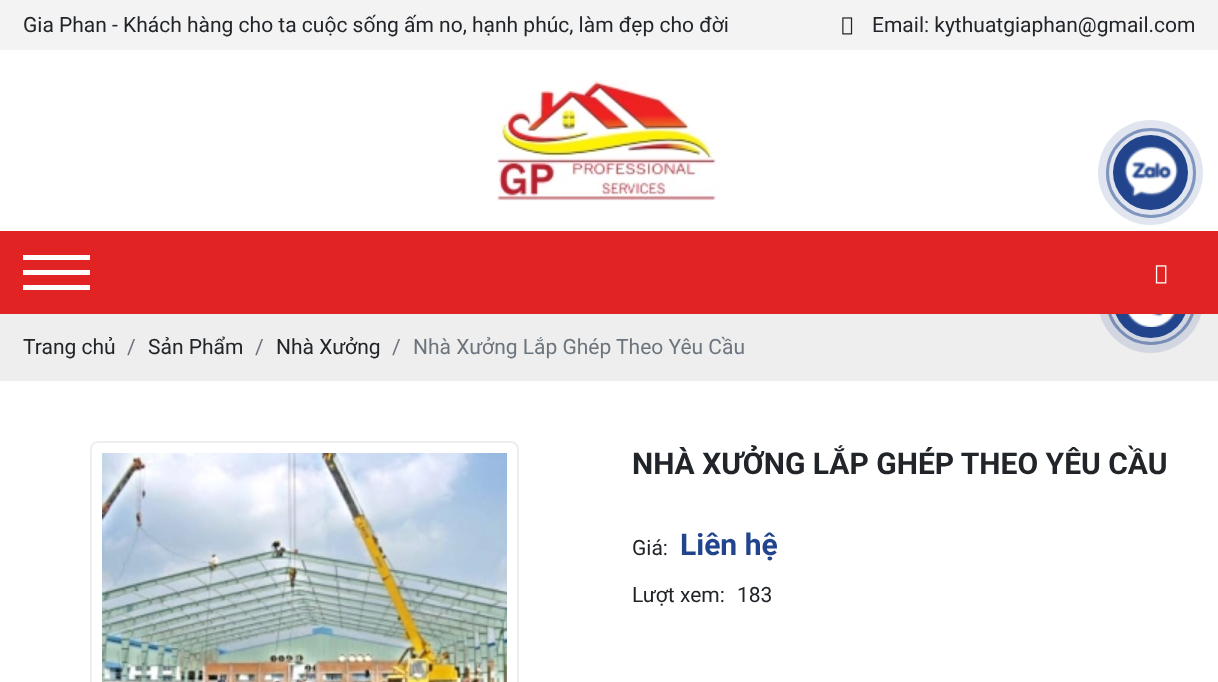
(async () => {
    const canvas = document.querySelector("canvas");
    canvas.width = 1218;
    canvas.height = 682;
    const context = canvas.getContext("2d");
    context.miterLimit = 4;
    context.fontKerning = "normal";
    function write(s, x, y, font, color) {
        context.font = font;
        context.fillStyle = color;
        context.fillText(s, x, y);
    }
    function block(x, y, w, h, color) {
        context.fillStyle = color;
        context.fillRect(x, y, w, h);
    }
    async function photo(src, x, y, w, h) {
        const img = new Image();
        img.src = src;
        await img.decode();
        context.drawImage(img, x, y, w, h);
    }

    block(0, 0, 1218, 682, "rgb(255, 255, 255)");
    block(0, 0, 1218, 50, "rgb(243, 243, 243)");
    write("Gia Phan - Khách hàng cho ta cuộc sống ấm no, hạnh phúc, làm đẹp cho đời", 23, 32, "21px Roboto", "rgb(33, 37, 41)");
    await photo("media/1.png", 842, 17, 11, 18);
    write("Email: kythuatgiaphan@gmail.com", 872, 32, "21px Roboto", "rgb(33, 37, 41)");
    await photo("media/2.png", 495, 79, 228, 122);
    block(0, 314, 1218, 67, "rgb(238, 238, 238)");
    context.beginPath();
    context.arc(1151, 300, 43.5, 0, Math.PI * 2);
    context.strokeStyle = "rgba(33, 68, 140, 0.5)";
    context.lineWidth = 3;
    context.stroke();
    context.fillStyle = "rgba(33, 68, 140, 0.14)";
    context.beginPath();
    context.arc(1150.5, 300.5, 52.5, 0, Math.PI * 2);
    context.fill();
    context.fillStyle = "rgb(33, 68, 140)";
    context.beginPath();
    context.arc(1150.5, 300.5, 37.5, 0, Math.PI * 2);
    context.fill();
    block(0, 231, 1218, 83, "rgb(225, 35, 35)");
    block(23, 255, 67, 5, "rgb(255, 255, 255)");
    block(23, 270, 67, 5, "rgb(255, 255, 255)");
    block(23, 285, 67, 5, "rgb(255, 255, 255)");
    await photo("media/3.png", 1155, 265, 12, 19);
    write("Trang chủ", 23, 354, "21px Roboto", "rgb(33, 37, 41)");
    write("/", 127, 354, "21px Roboto", "rgb(108, 117, 125)");
    write("Sản Phẩm", 148, 354, "21px Roboto", "rgb(33, 37, 41)");
    write("/", 255, 354, "21px Roboto", "rgb(108, 117, 125)");
    write("Nhà Xưởng", 276, 354, "21px Roboto", "rgb(33, 37, 41)");
    write("/", 392, 354, "21px Roboto", "rgb(108, 117, 125)");
    write("Nhà Xưởng Lắp Ghép Theo Yêu Cầu", 413, 354, "21px Roboto", "rgb(108, 117, 125)");
    context.beginPath();
    context.roundRect(91, 442, 427, 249, 7);
    context.strokeStyle = "rgb(238, 238, 238)";
    context.lineWidth = 2;
    context.stroke();
    await photo("media/4.png", 102, 453, 405, 229);
    write("NHÀ XƯỞNG LẮP GHÉP THEO YÊU CẦU", 632, 474, "bold 30px Roboto", "rgb(33, 37, 41)");
    write("Giá:", 632, 555, "21px Roboto", "rgb(33, 37, 41)");
    write("Liên hệ", 680, 555, "bold 30px Roboto", "rgb(33, 68, 140)");
    write("Lượt xem:", 632, 602, "21px Roboto", "rgb(33, 37, 41)");
    write("183", 737, 602, "21px Roboto", "rgb(33, 37, 41)");
    context.beginPath();
    context.arc(1151, 173, 43.5, 0, Math.PI * 2);
    context.strokeStyle = "rgb(144, 162, 198)";
    context.lineWidth = 3;
    context.stroke();
    context.fillStyle = "rgba(33, 68, 140, 0.14)";
    context.beginPath();
    context.arc(1150.5, 172.5, 52.5, 0, Math.PI * 2);
    context.fill();
    context.fillStyle = "rgb(33, 68, 140)";
    context.beginPath();
    context.arc(1150.5, 172.5, 37.5, 0, Math.PI * 2);
    context.fill();
    await photo("media/5.png", 1124, 146, 54, 51);
    await photo("media/6.png", 1127, 314, 48, 13);
})();
